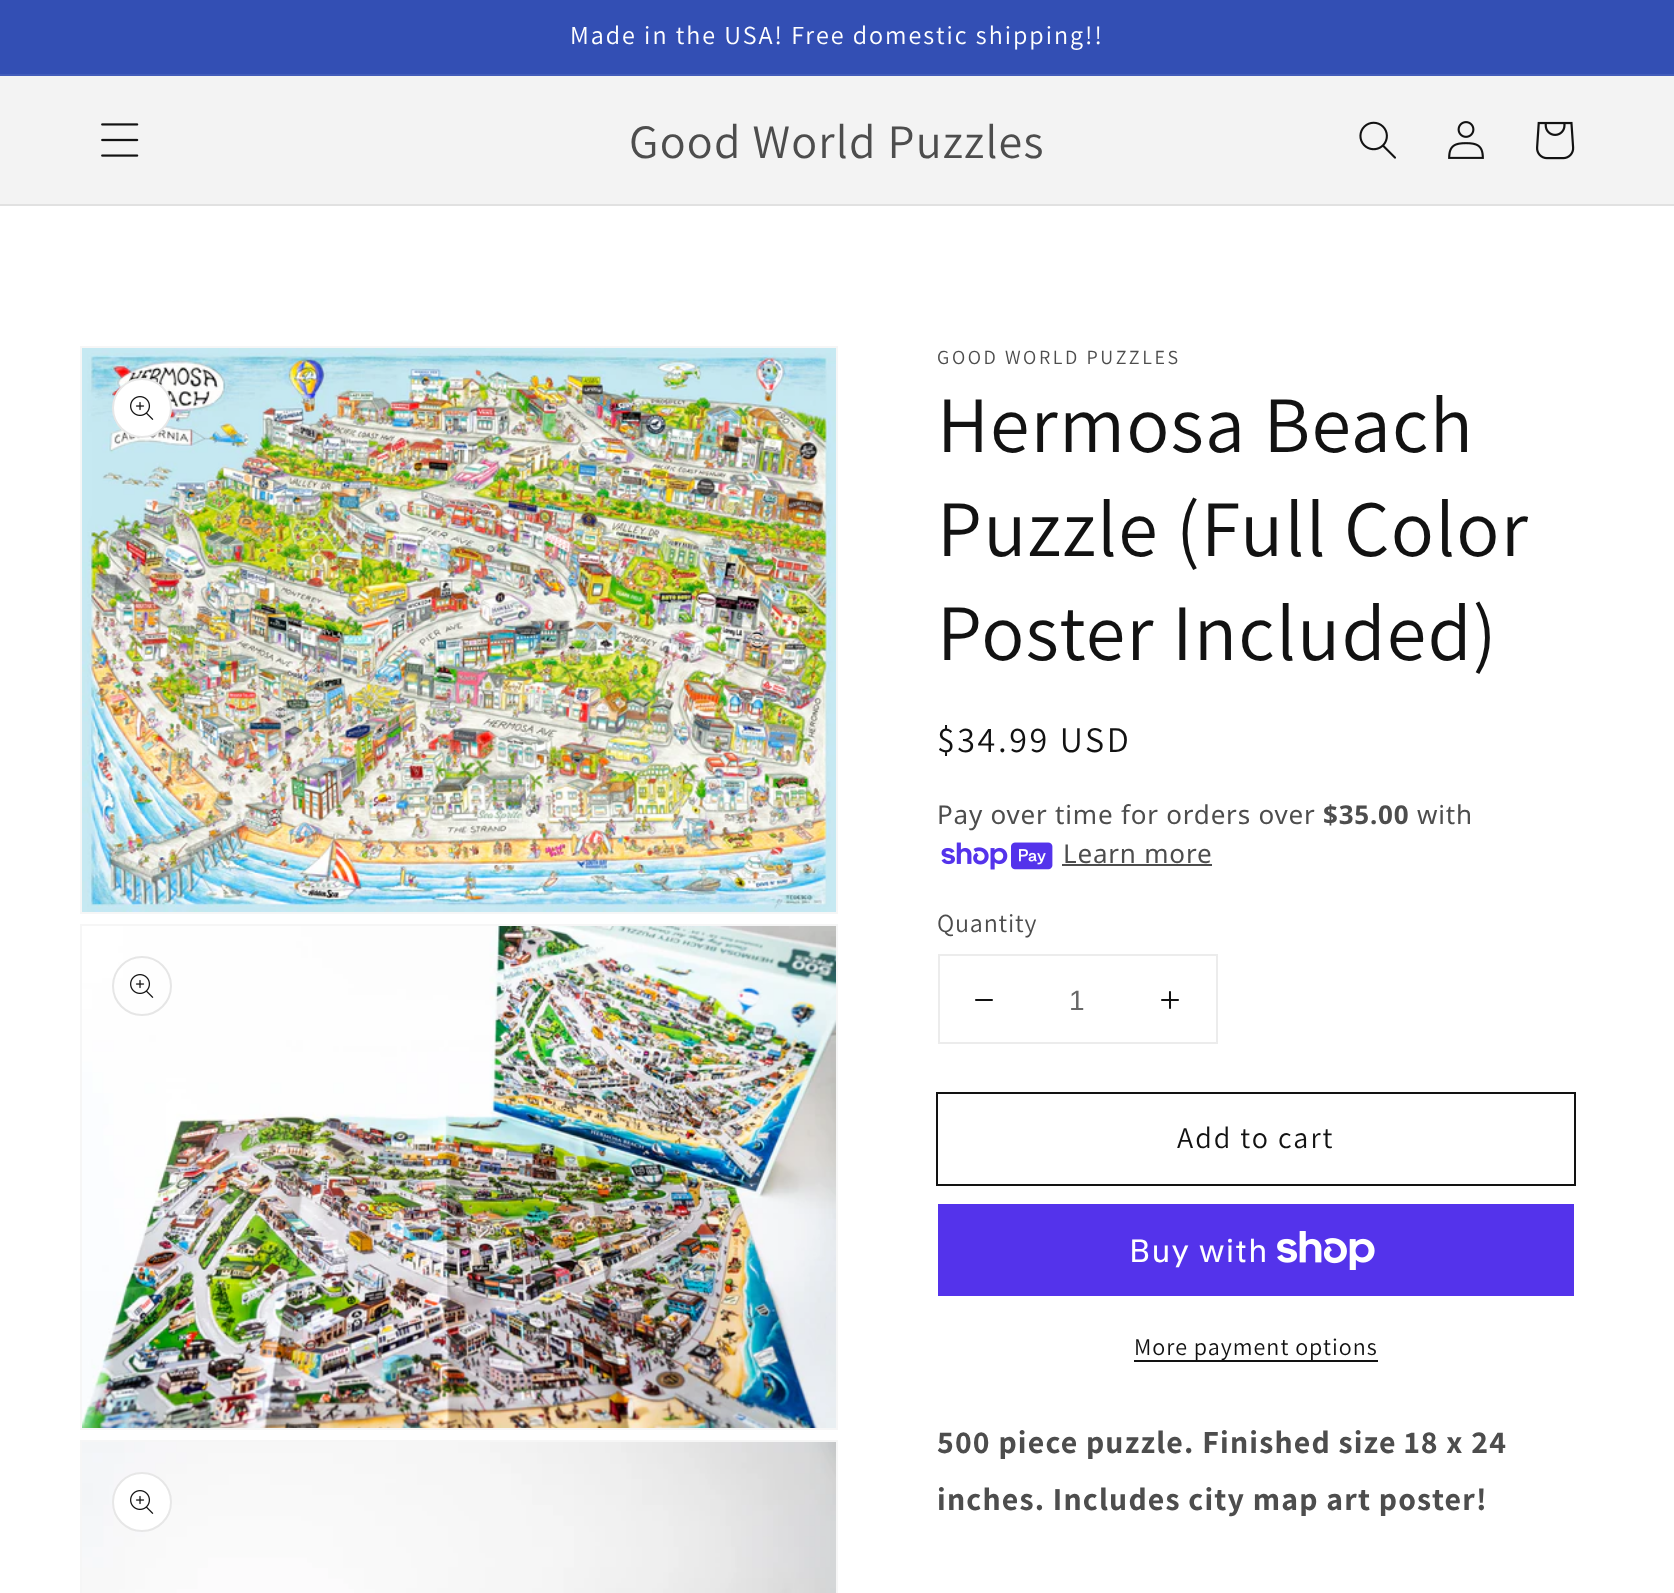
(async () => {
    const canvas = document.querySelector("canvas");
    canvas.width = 1674;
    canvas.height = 1593;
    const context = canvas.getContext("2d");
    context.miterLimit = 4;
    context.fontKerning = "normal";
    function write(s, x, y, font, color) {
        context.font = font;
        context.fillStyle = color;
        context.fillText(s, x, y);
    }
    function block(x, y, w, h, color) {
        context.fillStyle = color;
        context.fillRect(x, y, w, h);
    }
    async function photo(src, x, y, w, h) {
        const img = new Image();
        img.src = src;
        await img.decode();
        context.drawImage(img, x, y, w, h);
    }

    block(0, 0, 1674, 1593, "rgb(255, 255, 255)");
    block(0, 0, 1674, 74, "rgb(51, 79, 180)");
    block(0, 74, 1674, 2, "rgb(67, 93, 186)");
    context.letterSpacing = "2px";
    write("Made in the USA! Free domestic shipping!!", 570, 44, "26px Assistant", "rgb(255, 255, 255)");
    block(0, 76, 1674, 128, "rgb(243, 243, 243)");
    block(0, 204, 1674, 2, "rgb(225, 225, 225)");
    await photo("media/1.png", 101, 123, 38, 34);
    context.letterSpacing = "1.2px";
    write("Good World Puzzles", 629, 158, "48px Assistant", "rgb(77, 77, 77)");
    await photo("media/2.png", 1359, 121, 37, 38);
    await photo("media/3.png", 1448, 121, 36, 38);
    await photo("media/4.png", 1536, 121, 39, 39);
    context.strokeStyle = "rgb(246, 246, 246)";
    context.lineWidth = 2;
    context.strokeRect(81, 347, 756, 566);
    await photo("media/5.png", 82, 348, 754, 564);
    context.fillStyle = "rgb(255, 255, 255)";
    context.beginPath();
    context.arc(142, 408, 30, 0, Math.PI * 2);
    context.fill();
    context.beginPath();
    context.arc(142, 408, 29, 0, Math.PI * 2);
    context.strokeStyle = "rgba(18, 18, 18, 0.1)";
    context.stroke();
    await photo("media/6.png", 130, 396, 24, 24);
    context.strokeStyle = "rgb(246, 246, 246)";
    context.strokeRect(81, 925, 756, 504);
    await photo("media/7.png", 82, 926, 754, 502);
    context.beginPath();
    context.arc(142, 986, 29, 0, Math.PI * 2);
    context.strokeStyle = "rgb(230, 230, 230)";
    context.stroke();
    await photo("media/8.png", 130, 974, 24, 24);
    context.strokeStyle = "rgb(246, 246, 246)";
    context.strokeRect(81, 1441, 756, 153);
    await photo("media/9.png", 82, 1442, 754, 151);
    context.beginPath();
    context.arc(142, 1502, 30, 0, Math.PI * 2);
    context.fill();
    context.beginPath();
    context.arc(142, 1502, 29, 0, Math.PI * 2);
    context.strokeStyle = "rgba(18, 18, 18, 0.1)";
    context.stroke();
    await photo("media/6.png", 130, 1490, 24, 24);
    context.letterSpacing = "2.6px";
    write("GOOD WORLD PUZZLES", 937, 364, "20px Assistant", "rgb(77, 77, 77)");
    context.letterSpacing = "1.2px";
    write("Hermosa Beach", 937, 452, "80px Assistant", "rgb(18, 18, 18)");
    write("Puzzle (Full Color", 937, 556, "80px Assistant", "rgb(18, 18, 18)");
    write("Poster Included)", 937, 660, "80px Assistant", "rgb(18, 18, 18)");
    context.letterSpacing = "2.6px";
    write("$34.99 USD", 937, 752, "36px Assistant", "rgb(18, 18, 18)");
    context.letterSpacing = "0.8px";
    write("Pay over time for orders over", 937, 824, "26px Noto Sans", "rgb(77, 77, 77)");
    write("$35.00", 1323, 824, "bold 26px Noto Sans", "rgb(77, 77, 77)");
    write("with", 1417, 824, "26px Noto Sans", "rgb(77, 77, 77)");
    await photo("media/10.png", 941, 842, 112, 28);
    write("Learn more", 1063, 863, "26px Noto Sans", "rgb(77, 77, 77)");
    block(1062, 864, 150, 2, "rgb(77, 77, 77)");
    write("Quantity", 937, 932, "26px Assistant", "rgb(77, 77, 77)");
    context.strokeStyle = "rgb(236, 236, 236)";
    context.strokeRect(939, 955, 278, 88);
    await photo("media/11.png", 975, 999, 18, 2);
    context.letterSpacing = "0px";
    write("1", 1069, 1010, "28px Liberation Sans", "rgb(104, 104, 104)");
    await photo("media/12.png", 1161, 991, 18, 18);
    context.strokeStyle = "rgb(18, 18, 18)";
    context.strokeRect(937, 1093, 638, 92);
    context.letterSpacing = "2px";
    write("Add to cart", 1177, 1148, "30px Assistant", "rgb(18, 18, 18)");
    block(938, 1204, 636, 92, "rgb(84, 51, 235)");
    context.letterSpacing = "1.2px";
    write("Buy with", 1129, 1262, "32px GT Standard", "rgb(255, 255, 255)");
    await photo("media/13.png", 1277, 1231, 98, 39);
    block(1134, 1360, 244, 2, "rgb(18, 18, 18)");
    context.letterSpacing = "1px";
    write("More payment options", 1134, 1355, "24px Assistant", "rgb(18, 18, 18)");
    context.letterSpacing = "1.2px";
    write("500 piece puzzle. Finished size 18 x 24", 937, 1453, "bold 32px Assistant", "rgb(77, 77, 77)");
    write("inches. Includes city map art poster!", 937, 1510, "bold 32px Assistant", "rgb(77, 77, 77)");
})();
